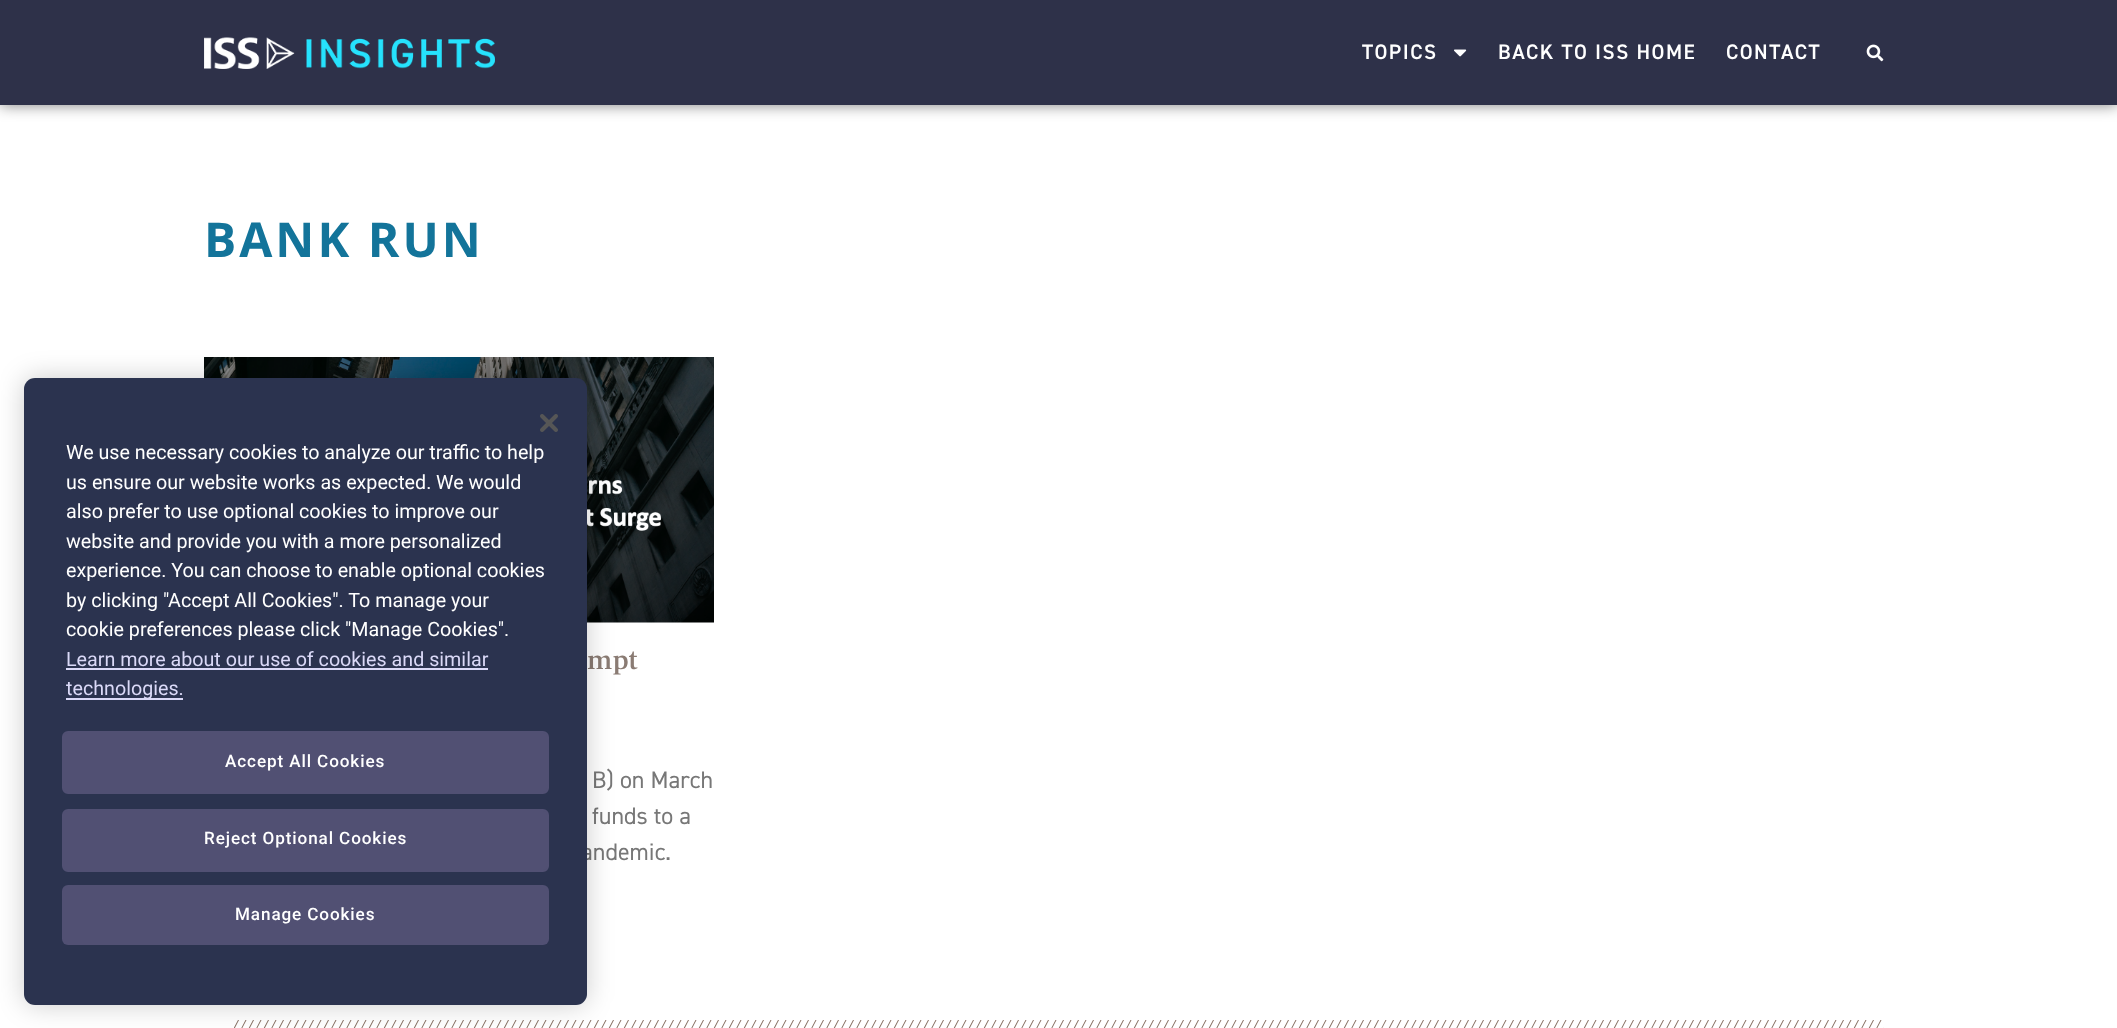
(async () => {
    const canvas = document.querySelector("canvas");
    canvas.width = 2117;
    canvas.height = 1028;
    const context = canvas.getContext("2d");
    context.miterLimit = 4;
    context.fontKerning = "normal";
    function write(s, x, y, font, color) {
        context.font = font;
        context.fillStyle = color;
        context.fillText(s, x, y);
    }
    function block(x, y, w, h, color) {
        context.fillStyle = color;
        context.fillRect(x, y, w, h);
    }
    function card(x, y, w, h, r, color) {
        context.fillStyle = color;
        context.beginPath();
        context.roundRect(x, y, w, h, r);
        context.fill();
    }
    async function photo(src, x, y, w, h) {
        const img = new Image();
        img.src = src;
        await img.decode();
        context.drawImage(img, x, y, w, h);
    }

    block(0, 0, 2117, 1028, "rgb(255, 255, 255)");
    context.fillStyle = "rgba(0, 0, 0, 0.5)";
    context.filter = "blur(7.5px)";
    context.beginPath();
    context.rect(0, 0, 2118, 105);
    context.fill();
    context.filter = "none";
    block(0, 0, 2117, 105, "rgb(46, 49, 73)");
    await photo("media/1.png", 204, 37, 291, 32);
    context.letterSpacing = "1.5px";
    write("TOPICS", 1362, 59, "600 21px 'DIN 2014'", "rgb(255, 255, 255)");
    await photo("media/2.png", 1454, 49, 13, 8);
    write("BACK TO ISS HOME", 1498, 59, "600 21px 'DIN 2014'", "rgb(255, 255, 255)");
    write("CONTACT", 1726, 59, "600 21px 'DIN 2014'", "rgb(255, 255, 255)");
    await photo("media/3.png", 1866, 44, 18, 18);
    context.letterSpacing = "3px";
    write("BANK RUN", 204, 257, "bold 48px Open Sans", "rgb(19, 116, 154)");
    await photo("media/4.png", 204, 357, 510, 266);
    context.letterSpacing = "0px";
    write("mpt", 587, 669, "500 28px Frank Ruhl Libre", "rgb(138, 123, 115)");
    write("B) on March", 592, 788, "24px 'DIN 2014'", "rgb(119, 119, 119)");
    write("funds to a", 592, 824, "24px 'DIN 2014'", "rgb(119, 119, 119)");
    write("andemic.", 581, 860, "24px 'DIN 2014'", "rgb(119, 119, 119)");
    await photo("media/5.png", 234, 1020, 1650, 8);
    context.fillStyle = "rgba(0, 0, 0, 0.2)";
    context.filter = "blur(13.5px)";
    context.beginPath();
    context.roundRect(24, 378, 563, 627, 11);
    context.fill();
    context.filter = "none";
    card(24, 378, 563, 627, 11, "rgb(43, 51, 79)");
    await photo("media/6.png", 540, 414, 18, 18);
    write("We use necessary cookies to analyze our traffic to help", 66, 459, "19.7px Roboto", "rgb(255, 255, 255)");
    write("us ensure our website works as expected.", 66, 489, "19.7px Roboto", "rgb(255, 255, 255)");
    write("We would", 436, 489, "19.7px Roboto", "rgb(255, 255, 255)");
    write("also prefer to use optional cookies to improve our", 66, 518, "19.7px Roboto", "rgb(255, 255, 255)");
    write("website and provide you with a more personalized", 66, 548, "19.7px Roboto", "rgb(255, 255, 255)");
    write("experience. You can choose to enable optional cookies", 66, 577, "19.7px Roboto", "rgb(255, 255, 255)");
    write("by clicking \"Accept All Cookies\". To manage your", 66, 607, "19.7px Roboto", "rgb(255, 255, 255)");
    write("cookie preferences please click \"Manage Cookies\".", 66, 636, "19.7px Roboto", "rgb(255, 255, 255)");
    write("Learn more about our use of cookies and similar", 66, 666, "19.7px Roboto", "rgb(218, 217, 247)");
    block(66, 668, 422, 2, "rgb(218, 217, 247)");
    block(66, 698, 117, 2, "rgb(218, 217, 247)");
    write("technologies.", 66, 695, "19.7px Roboto", "rgb(218, 217, 247)");
    context.fillStyle = "rgb(81, 80, 115)";
    context.beginPath();
    context.roundRect(63, 732, 485, 61, 5);
    context.fill();
    context.strokeStyle = "rgb(81, 80, 115)";
    context.lineWidth = 2;
    context.stroke();
    context.letterSpacing = "0.9px";
    write("Accept All Cookies", 225, 767, "500 17.1px Roboto", "rgb(255, 255, 255)");
    context.fillStyle = "rgb(81, 80, 115)";
    context.beginPath();
    context.roundRect(63, 810, 485, 61, 5);
    context.fill();
    context.stroke();
    write("Reject Optional Cookies", 204, 844, "500 17.1px Roboto", "rgb(255, 255, 255)");
    card(62, 885, 487, 60, 6, "rgb(81, 80, 115)");
    write("Manage Cookies", 235, 920, "500 17.1px Roboto", "rgb(255, 255, 255)");
})();
